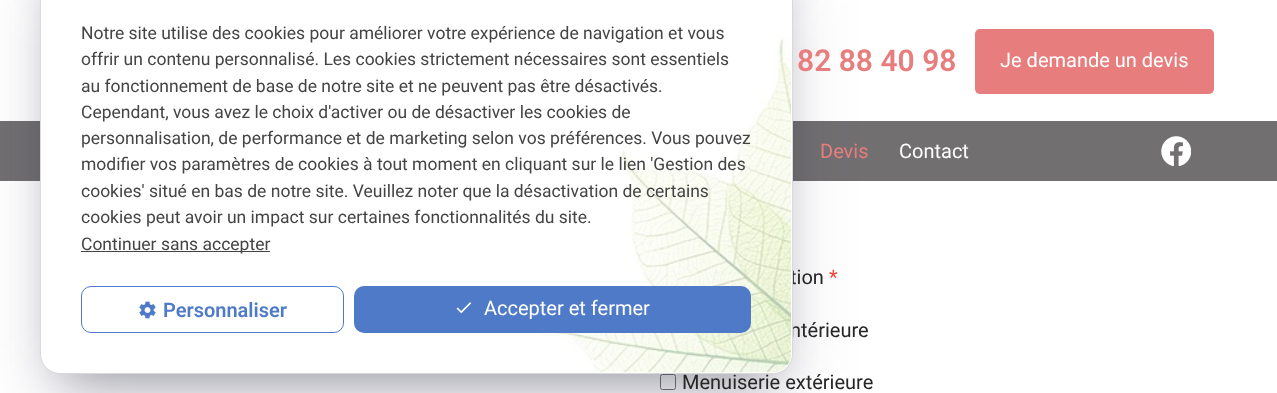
(async () => {
    const canvas = document.querySelector("canvas");
    canvas.width = 1277;
    canvas.height = 393;
    const context = canvas.getContext("2d");
    context.miterLimit = 4;
    context.fontKerning = "normal";
    function write(s, x, y, font, color) {
        context.font = font;
        context.fillStyle = color;
        context.fillText(s, x, y);
    }
    function block(x, y, w, h, color) {
        context.fillStyle = color;
        context.fillRect(x, y, w, h);
    }
    function card(x, y, w, h, r, color) {
        context.fillStyle = color;
        context.beginPath();
        context.roundRect(x, y, w, h, r);
        context.fill();
    }
    async function photo(src, x, y, w, h) {
        const img = new Image();
        img.src = src;
        await img.decode();
        context.drawImage(img, x, y, w, h);
    }

    block(0, 0, 1277, 393, "rgb(255, 255, 255)");
    block(0, 121, 1277, 60, "rgb(113, 111, 112)");
    context.beginPath();
    context.roundRect(660.5, 374.5, 15, 15, 2);
    context.strokeStyle = "rgb(118, 118, 118)";
    context.stroke();
    context.fillStyle = "rgba(0, 0, 0, 0.3)";
    context.filter = "blur(22.5px)";
    context.beginPath();
    context.rect(63, -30, 707, 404);
    context.fill();
    context.filter = "none";
    context.fillStyle = "rgba(50, 50, 93, 0.25)";
    context.filter = "blur(37.5px)";
    context.beginPath();
    context.roundRect(55, -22, 723, 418, 5);
    context.fill();
    context.filter = "none";
    write("tion", 790, 284, "20px Roboto", "rgb(38, 38, 38)");
    write("ntérieure", 790, 337, "20px Roboto", "rgb(38, 38, 38)");
    context.fillStyle = "rgb(255, 255, 255)";
    context.beginPath();
    context.roundRect(40.5, -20.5, 752, 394, 19.5);
    context.fill();
    context.strokeStyle = "rgb(217, 217, 217)";
    context.stroke();
    await photo("media/3.png", 541, 35, 250, 338);
    write("Notre site utilise des cookies pour améliorer votre expérience de navigation et vous", 81, 39, "17.5px Roboto", "rgb(68, 68, 68)");
    write("offrir un contenu personnalisé. Les cookies strictement nécessaires sont essentiels", 81, 65, "17.5px Roboto", "rgb(68, 68, 68)");
    write("au fonctionnement de base de notre site et ne peuvent pas être désactivés.", 81, 92, "17.5px Roboto", "rgb(68, 68, 68)");
    write("Cependant, vous avez le choix d'activer ou de désactiver les cookies de", 81, 118, "17.5px Roboto", "rgb(68, 68, 68)");
    write("personnalisation, de performance et de marketing selon vos préférences. Vous pouvez", 81, 144, "17.5px Roboto", "rgb(68, 68, 68)");
    write("modifier vos paramètres de cookies à tout moment en cliquant sur le lien 'Gestion des", 81, 170, "17.5px Roboto", "rgb(68, 68, 68)");
    write("cookies' situé en bas de notre site. Veuillez noter que la désactivation de certains", 81, 197, "17.5px Roboto", "rgb(68, 68, 68)");
    write("cookies peut avoir un impact sur certaines fonctionnalités du site.", 81, 223, "17.5px Roboto", "rgb(68, 68, 68)");
    block(81, 251, 189, 1, "rgb(68, 68, 68)");
    write("Continuer sans accepter", 81, 250, "17.5px Roboto", "rgb(68, 68, 68)");
    context.beginPath();
    context.roundRect(81.5, 286.5, 262, 46, 9.5);
    context.strokeStyle = "rgb(78, 122, 199)";
    context.stroke();
    await photo("media/1.png", 139, 301, 17, 18);
    write("Personnaliser", 163, 317, "600 20px Roboto", "rgb(78, 122, 199)");
    card(354, 286, 397, 47, 10, "rgb(78, 122, 199)");
    await photo("media/2.png", 456, 302, 16, 12);
    write("Accepter et fermer", 484, 315, "20px Roboto", "rgb(255, 255, 255)");
    write("82 88 40 98", 797, 71, "600 30px Roboto", "rgb(232, 125, 125)");
    card(975, 29, 239, 65, 5, "rgb(232, 125, 125)");
    write("Je demande un devis", 1000, 67, "20px Roboto", "rgb(255, 255, 255)");
    write("Devis", 820, 158, "20px Roboto", "rgb(232, 125, 125)");
    write("Contact", 899, 158, "20px Roboto", "rgb(255, 255, 255)");
    await photo("media/4.png", 1161, 136, 30, 30);
    write("*", 829, 284, "20px Roboto", "rgb(244, 64, 52)");
    write("Menuiserie extérieure", 682, 389, "20px Roboto", "rgb(38, 38, 38)");
})();
